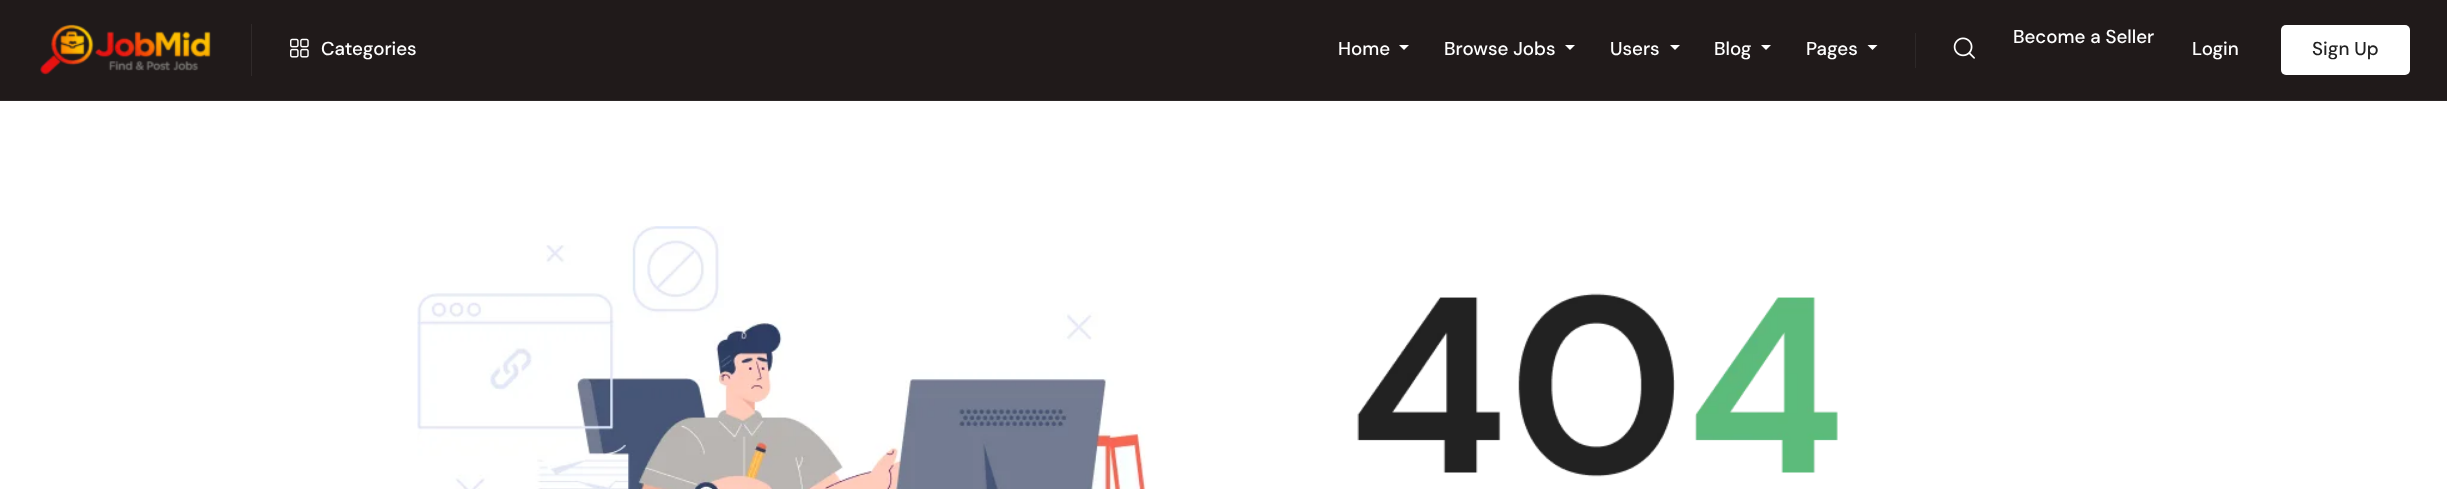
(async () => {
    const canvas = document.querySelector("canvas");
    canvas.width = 2447;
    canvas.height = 489;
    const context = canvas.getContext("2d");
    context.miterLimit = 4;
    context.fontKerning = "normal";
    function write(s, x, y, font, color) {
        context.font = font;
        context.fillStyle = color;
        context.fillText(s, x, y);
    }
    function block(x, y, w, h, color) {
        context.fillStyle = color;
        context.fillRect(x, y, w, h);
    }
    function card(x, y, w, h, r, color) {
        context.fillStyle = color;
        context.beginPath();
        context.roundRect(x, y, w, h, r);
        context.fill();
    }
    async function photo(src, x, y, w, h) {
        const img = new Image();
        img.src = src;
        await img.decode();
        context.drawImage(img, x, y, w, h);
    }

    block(0, 0, 2447, 489, "rgb(255, 255, 255)");
    block(0, 0, 2447, 100, "rgb(32, 26, 26)");
    block(0, 100, 2447, 1, "rgb(45, 40, 40)");
    await photo("media/1.png", 40, 24, 171, 51);
    block(251, 24, 1, 52, "rgb(48, 42, 42)");
    await photo("media/2.png", 290, 38, 19, 20);
    write("Categories", 321, 55, "500 18.75px DM Sans", "rgb(255, 255, 255)");
    write("Home", 1338, 55, "500 18.75px DM Sans", "rgb(255, 255, 255)");
    context.beginPath();
    context.moveTo(1399, 45);
    context.lineTo(1409, 45);
    context.lineTo(1404, 50);
    context.closePath();
    context.fill();
    write("Browse Jobs", 1444, 55, "500 18.75px DM Sans", "rgb(255, 255, 255)");
    context.beginPath();
    context.moveTo(1565, 45);
    context.lineTo(1575, 45);
    context.lineTo(1570, 50);
    context.closePath();
    context.fill();
    write("Users", 1610, 55, "500 18.75px DM Sans", "rgb(255, 255, 255)");
    context.beginPath();
    context.moveTo(1670, 45);
    context.lineTo(1680, 45);
    context.lineTo(1675, 50);
    context.closePath();
    context.fill();
    write("Blog", 1714, 55, "500 18.75px DM Sans", "rgb(255, 255, 255)");
    context.beginPath();
    context.moveTo(1761, 45);
    context.lineTo(1771, 45);
    context.lineTo(1766, 50);
    context.closePath();
    context.fill();
    write("Pages", 1806, 55, "500 18.75px DM Sans", "rgb(255, 255, 255)");
    context.beginPath();
    context.moveTo(1867.5, 45);
    context.lineTo(1877.5, 45);
    context.lineTo(1872.5, 50);
    context.closePath();
    context.fill();
    block(1915, 33, 1, 35, "rgb(45, 40, 40)");
    await photo("media/3.png", 1953, 37, 22, 22);
    write("Become a Seller", 2013, 43, "500 18.75px DM Sans", "rgb(255, 255, 255)");
    write("Login", 2192, 55, "500 18.75px DM Sans", "rgb(255, 255, 255)");
    card(2281, 25, 129, 50, 5, "rgb(255, 255, 255)");
    write("Sign Up", 2312, 55, "500 18.75px DM Sans", "rgb(34, 34, 34)");
    await photo("media/4.png", 417, 226, 729, 263);
    await photo("media/5.png", 1357, 293, 481, 184);
})();
